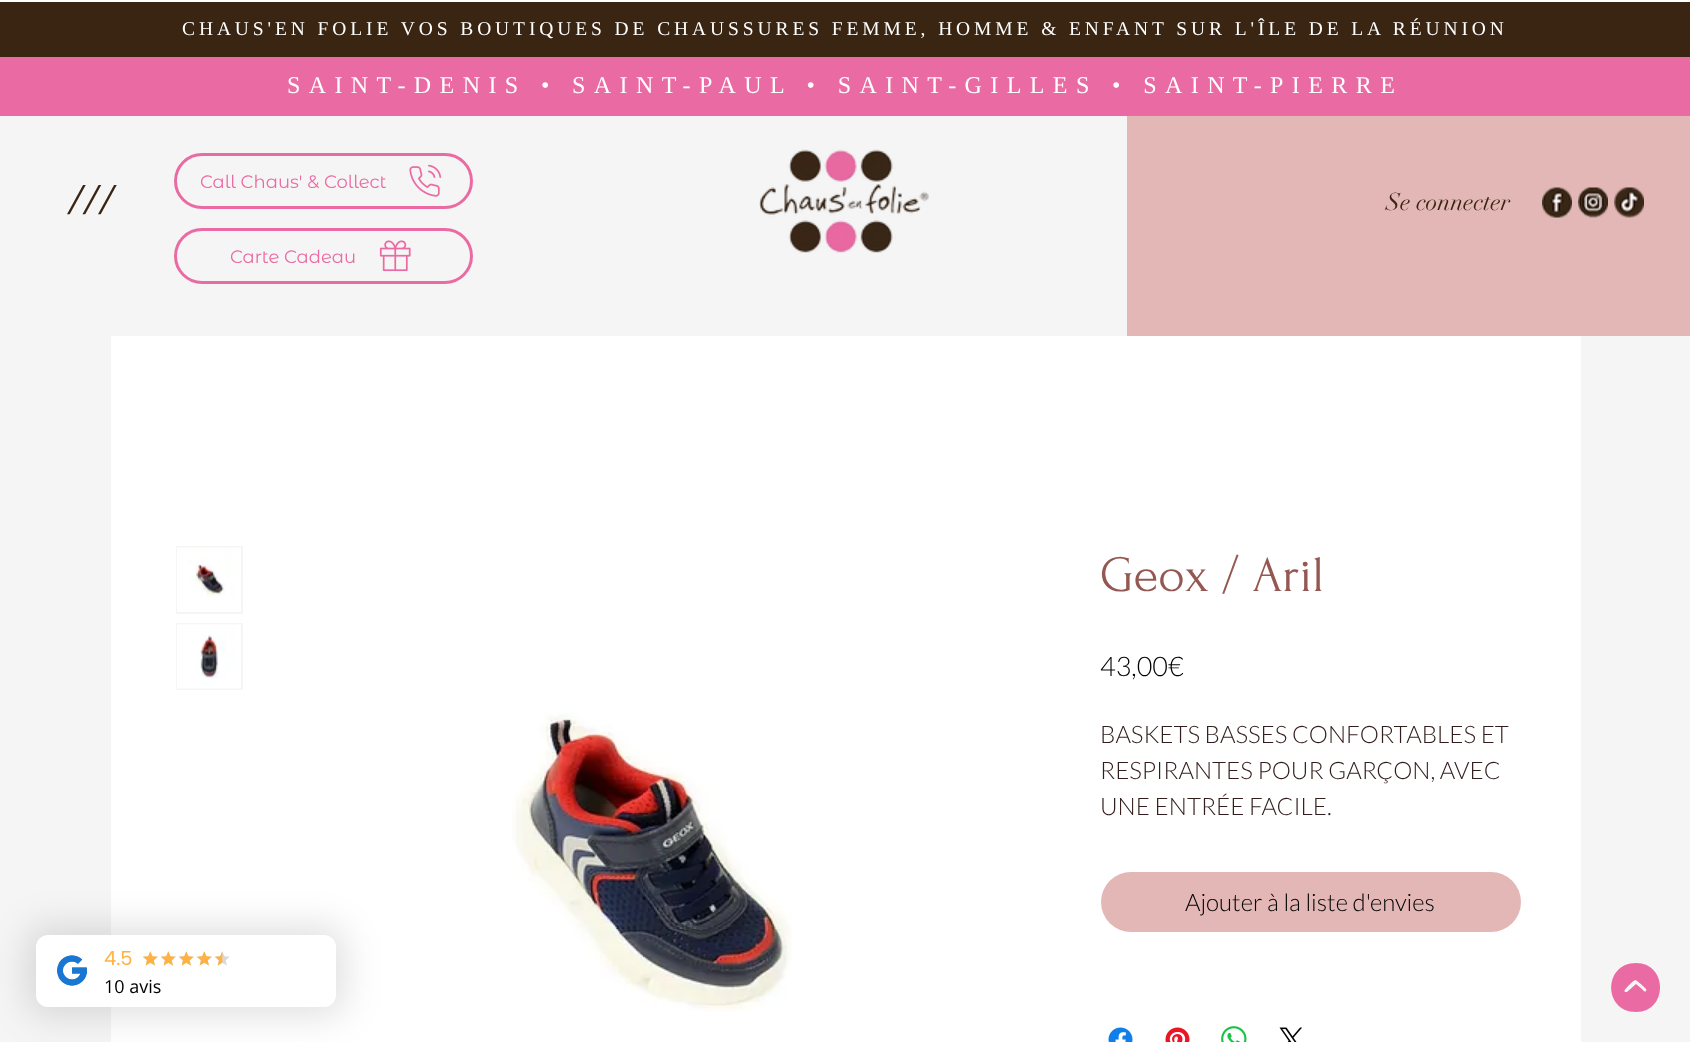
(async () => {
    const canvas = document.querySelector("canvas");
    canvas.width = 1690;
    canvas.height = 1042;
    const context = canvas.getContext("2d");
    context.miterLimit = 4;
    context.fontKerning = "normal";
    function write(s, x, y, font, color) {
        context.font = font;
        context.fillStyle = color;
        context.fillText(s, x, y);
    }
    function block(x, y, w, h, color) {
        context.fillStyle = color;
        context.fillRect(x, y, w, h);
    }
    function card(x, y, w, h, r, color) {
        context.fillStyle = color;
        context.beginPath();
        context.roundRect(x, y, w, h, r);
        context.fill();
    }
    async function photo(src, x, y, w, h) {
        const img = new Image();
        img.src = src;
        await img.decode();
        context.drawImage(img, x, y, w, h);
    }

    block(0, 0, 1690, 1042, "rgb(245, 245, 245)");
    block(0, 0, 1690, 2, "rgb(255, 255, 255)");
    block(0, 2, 1690, 55, "rgb(58, 37, 18)");
    context.letterSpacing = "3.9px";
    write("CHAUS'EN FOLIE VOS BOUTIQUES DE CHAUSSURES FEMME, HOMME & ENFANT SUR L'ÎLE DE LA RÉUNION", 182, 35, "19.5px Liberation Serif", "rgb(255, 255, 255)");
    block(0, 57, 1690, 59, "rgb(234, 107, 163)");
    context.letterSpacing = "8.4px";
    write("SAINT-DENIS • SAINT-PAUL • SAINT-GILLES • SAINT-PIERRE", 287, 93, "24px Liberation Serif", "rgb(255, 255, 255)");
    context.beginPath();
    context.roundRect(175.5, 154.5, 296, 53, 26.5);
    context.strokeStyle = "rgb(234, 107, 163)";
    context.lineWidth = 3;
    context.stroke();
    context.letterSpacing = "0px";
    write("Call Chaus' & Collect", 200, 188, "18px Montserrat Alternates", "rgb(234, 107, 163)");
    await photo("media/1.png", 409, 164, 33, 33);
    context.letterSpacing = "-4px";
    write("///", 67, 213, "39px Caudex", "rgb(58, 37, 18)");
    context.beginPath();
    context.roundRect(175.5, 229.5, 296, 53, 26.5);
    context.stroke();
    context.letterSpacing = "0px";
    write("Carte Cadeau", 230, 263, "18px Montserrat Alternates", "rgb(234, 107, 163)");
    await photo("media/2.png", 379, 240, 32, 32);
    await photo("media/3.png", 759, 149, 170, 104);
    block(1127, 116, 563, 220, "rgb(228, 183, 183)");
    write("Se connecter", 1386, 210, "24px didot", "rgb(58, 37, 18)");
    await photo("media/4.png", 1542, 187, 30, 31);
    await photo("media/5.png", 1578, 187, 30, 31);
    await photo("media/6.png", 1614, 187, 30, 31);
    block(111, 336, 1470, 706, "rgb(255, 255, 255)");
    context.strokeStyle = "rgb(245, 245, 245)";
    context.lineWidth = 2;
    context.strokeRect(177, 547, 65, 66);
    await photo("media/7.png", 177, 547, 64, 65);
    context.strokeRect(177, 624, 65, 65);
    await photo("media/8.png", 177, 624, 64, 65);
    await photo("media/9.png", 512, 713, 280, 298);
    write("Geox / Aril", 1100, 591, "51px Forum", "rgb(148, 88, 82)");
    write("43,00€", 1100, 676, "300 27px Lato", "rgb(0, 0, 0)");
    write("BASKETS BASSES CONFORTABLES ET", 1100, 743, "300 24px Lato", "rgb(49, 29, 27)");
    write("RESPIRANTES POUR GARÇON, AVEC", 1100, 779, "300 24px Lato", "rgb(49, 29, 27)");
    write("UNE ENTRÉE FACILE.", 1100, 815, "300 24px Lato", "rgb(49, 29, 27)");
    card(1101, 872, 420, 60, 30, "rgb(228, 183, 183)");
    write("Ajouter à la liste d'envies", 1185, 911, "300 24px Lato", "rgb(0, 0, 0)");
    await photo("media/10.png", 1108, 1027, 25, 15);
    await photo("media/11.png", 1165, 1027, 25, 15);
    await photo("media/12.png", 1221, 1026, 26, 16);
    await photo("media/13.png", 1279, 1027, 23, 15);
    context.fillStyle = "rgb(234, 107, 163)";
    context.beginPath();
    context.moveTo(1636, 963);
    context.bezierCurveTo(1603, 963, 1603, 1012, 1636, 1012);
    context.bezierCurveTo(1668, 1012, 1668, 963, 1636, 963);
    context.closePath();
    context.moveTo(1646, 991);
    context.bezierCurveTo(1645, 993, 1642, 989, 1642, 989);
    context.lineTo(1636, 984);
    context.lineTo(1627, 992);
    context.lineTo(1625, 992);
    context.bezierCurveTo(1623, 990, 1628, 987, 1628, 986);
    context.bezierCurveTo(1636, 979, 1634, 978, 1642, 985);
    context.bezierCurveTo(1642, 986, 1648, 989, 1646, 991);
    context.closePath();
    context.fill();
    context.fillStyle = "rgba(0, 0, 0, 0.12)";
    context.filter = "blur(18px)";
    context.beginPath();
    context.roundRect(27, 926, 318, 90, 18);
    context.fill();
    context.filter = "none";
    card(36, 935, 300, 72, 12, "rgb(255, 255, 255)");
    await photo("media/14.png", 57, 955, 30, 31);
    write("4.5", 104, 965, "19.5px Poppins", "rgb(255, 178, 67)");
    await photo("media/15.png", 143, 951, 15, 15);
    await photo("media/16.png", 143, 951, 15, 15);
    await photo("media/15.png", 161, 951, 15, 15);
    await photo("media/16.png", 161, 951, 15, 15);
    await photo("media/15.png", 179, 951, 15, 15);
    await photo("media/16.png", 179, 951, 15, 15);
    await photo("media/15.png", 197, 951, 15, 15);
    await photo("media/16.png", 197, 951, 15, 15);
    await photo("media/15.png", 215, 951, 15, 15);
    await photo("media/17.png", 215, 951, 8, 15);
    write("10 avis", 104, 993, "18px Open Sans", "rgb(0, 0, 0)");
})();
